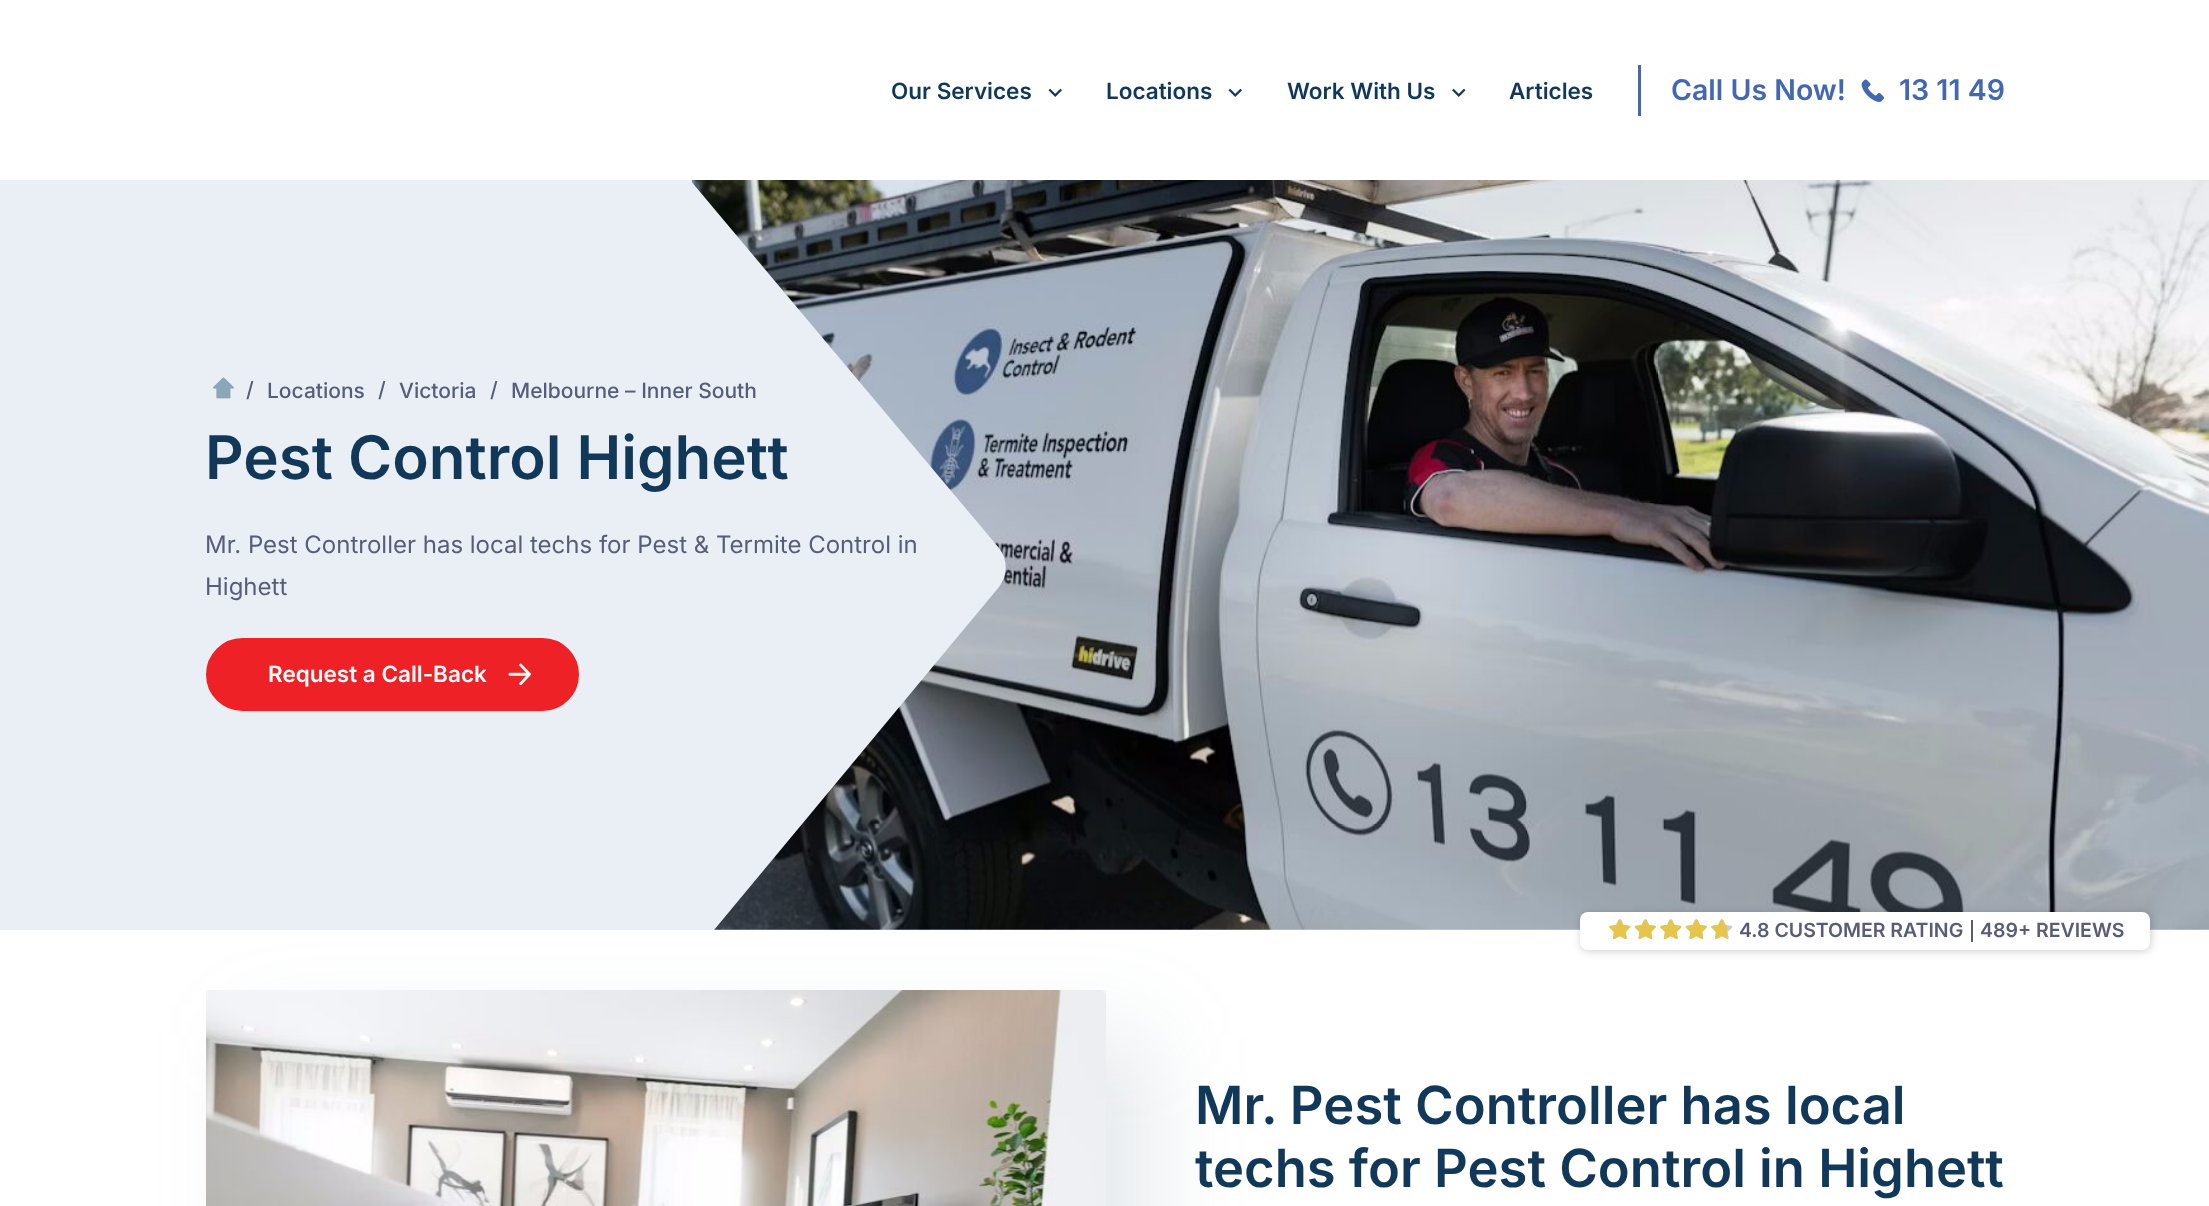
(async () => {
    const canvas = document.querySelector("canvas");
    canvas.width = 2209;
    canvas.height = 1206;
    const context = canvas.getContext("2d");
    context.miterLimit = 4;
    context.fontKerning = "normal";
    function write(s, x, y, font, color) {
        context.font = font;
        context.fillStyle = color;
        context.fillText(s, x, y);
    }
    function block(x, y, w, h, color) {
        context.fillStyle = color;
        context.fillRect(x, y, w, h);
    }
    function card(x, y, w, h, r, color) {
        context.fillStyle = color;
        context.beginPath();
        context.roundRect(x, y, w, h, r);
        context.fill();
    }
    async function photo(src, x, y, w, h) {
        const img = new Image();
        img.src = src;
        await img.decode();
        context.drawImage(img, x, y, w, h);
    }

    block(0, 0, 2209, 1206, "rgb(255, 255, 255)");
    write("Our Services", 891, 99, "600 22.5px Inter", "rgb(17, 55, 89)");
    await photo("media/1.png", 1048, 88, 14, 9);
    write("Locations", 1106, 99, "600 22.5px Inter", "rgb(17, 55, 89)");
    await photo("media/1.png", 1228, 88, 14, 9);
    write("Work With Us", 1287, 99, "600 22.5px Inter", "rgb(17, 55, 89)");
    await photo("media/2.png", 1452, 88, 14, 9);
    write("Articles", 1509, 99, "600 22.5px Inter", "rgb(17, 55, 89)");
    block(1638, 65, 3, 51, "rgb(68, 103, 178)");
    write("Call Us Now!", 1671, 100, "600 28.5px Inter", "rgb(68, 103, 178)");
    await photo("media/3.png", 1861, 79, 23, 23);
    write("13 11 49", 1899, 100, "600 28.5px Inter", "rgb(68, 103, 178)");
    block(0, 180, 2209, 750, "rgb(233, 239, 244)");
    await photo("media/4.png", 213, 377, 21, 22);
    write("/", 246, 397, "500 21px Inter", "rgb(87, 93, 121)");
    write("Locations", 267, 398, "500 21px Inter", "rgb(87, 93, 121)");
    write("/", 378, 397, "500 21px Inter", "rgb(87, 93, 121)");
    write("Victoria", 399, 398, "500 21px Inter", "rgb(87, 93, 121)");
    write("/", 490, 397, "500 21px Inter", "rgb(87, 93, 121)");
    await photo("media/6.png", 692, 180, 1517, 750);
    context.fillStyle = "rgb(233, 239, 244)";
    context.beginPath();
    context.moveTo(999, 548);
    context.lineTo(690, 180);
    context.lineTo(690, 930);
    context.lineTo(714, 930);
    context.lineTo(999, 587);
    context.bezierCurveTo(1008, 576, 1008, 559, 999, 548);
    context.closePath();
    context.fill("evenodd");
    write("Melbourne – Inner South", 511, 398, "500 21px Inter", "rgb(87, 93, 121)");
    write("Pest Control Highett", 205, 479, "600 60px Inter", "rgb(17, 55, 89)");
    write("Mr. Pest Controller has local techs for Pest & Termite Control in", 205, 553, "24px Inter", "rgb(87, 93, 121)");
    write("Highett", 205, 595, "24px Inter", "rgb(87, 93, 121)");
    context.fillStyle = "rgb(238, 33, 38)";
    context.beginPath();
    context.roundRect(207.5, 639.5, 370, 70, 35);
    context.fill();
    context.strokeStyle = "rgb(238, 33, 38)";
    context.lineWidth = 3;
    context.stroke();
    write("Request a Call-Back", 268, 682, "600 22.5px Inter", "rgb(255, 255, 255)");
    await photo("media/5.png", 508, 663, 23, 23);
    context.fillStyle = "rgba(0, 0, 0, 0.2)";
    context.filter = "blur(4.5px)";
    context.beginPath();
    context.roundRect(1581, 914, 570, 37, 8);
    context.fill();
    context.filter = "none";
    card(1580, 912, 570, 38, 8, "rgb(255, 255, 255)");
    await photo("media/7.png", 1609, 919, 22, 20);
    await photo("media/8.png", 1634, 919, 22, 20);
    await photo("media/7.png", 1660, 919, 22, 20);
    await photo("media/8.png", 1685, 919, 22, 20);
    await photo("media/7.png", 1711, 919, 22, 20);
    await photo("media/9.png", 1609, 920, 22, 20);
    await photo("media/10.png", 1634, 920, 22, 20);
    await photo("media/9.png", 1660, 920, 22, 20);
    await photo("media/10.png", 1685, 920, 22, 20);
    await photo("media/11.png", 1711, 920, 16, 19);
    write("4.8 CUSTOMER RATING", 1739, 937, "600 19.5px Inter", "rgb(87, 93, 121)");
    block(1971, 920, 2, 22, "rgb(87, 93, 121)");
    write("489+ REVIEWS", 1980, 937, "600 19.5px Inter", "rgb(87, 93, 121)");
    context.fillStyle = "rgba(131, 151, 166, 0.2)";
    context.filter = "blur(45px)";
    context.beginPath();
    context.rect(251, 1035, 900, 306);
    context.fill();
    context.filter = "none";
    await photo("media/12.png", 206, 990, 900, 216);
    write("Mr. Pest Controller has local", 1195, 1124, "600 52.5px Inter", "rgb(17, 55, 89)");
    write("techs for Pest Control in Highett", 1195, 1187, "600 52.5px Inter", "rgb(17, 55, 89)");
})();
